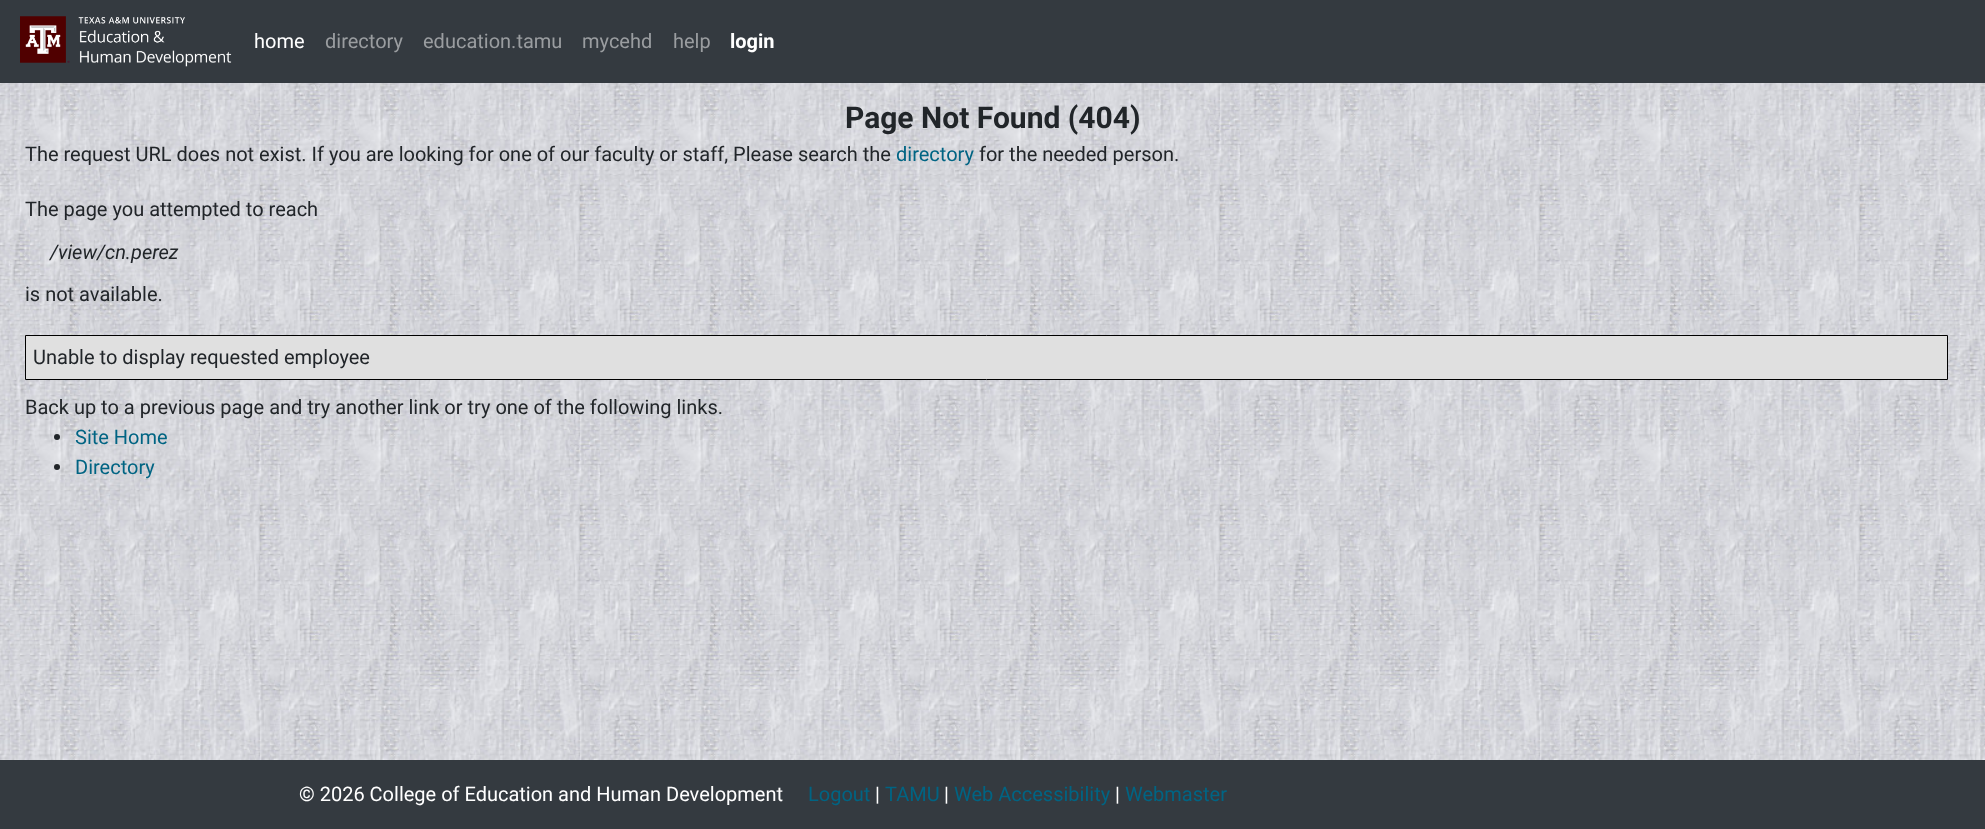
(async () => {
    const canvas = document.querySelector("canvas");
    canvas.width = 1985;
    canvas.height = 829;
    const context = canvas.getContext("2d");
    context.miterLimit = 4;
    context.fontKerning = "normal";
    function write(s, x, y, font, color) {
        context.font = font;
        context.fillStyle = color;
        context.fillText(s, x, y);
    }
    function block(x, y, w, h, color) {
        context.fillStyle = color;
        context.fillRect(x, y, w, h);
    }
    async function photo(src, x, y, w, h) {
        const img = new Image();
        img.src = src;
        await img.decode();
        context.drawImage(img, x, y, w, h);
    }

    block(0, 0, 1985, 829, "rgb(255, 255, 255)");
    await photo("media/1.png", 0, 83, 1985, 677);
    block(0, 0, 1985, 83, "rgb(52, 58, 64)");
    await photo("media/2.png", 20, 16, 212, 51);
    write("home", 254, 48, "20px Roboto", "rgb(255, 255, 255)");
    write("directory", 325, 48, "20px Roboto", "rgb(154, 157, 160)");
    write("education.tamu", 423, 48, "20px Roboto", "rgb(154, 157, 160)");
    write("mycehd", 582, 48, "20px Roboto", "rgb(154, 157, 160)");
    write("help", 673, 48, "20px Roboto", "rgb(154, 157, 160)");
    write("login", 730, 48, "bold 20px Roboto", "rgb(255, 255, 255)");
    write("Page Not Found (404)", 845, 128, "bold 30px Roboto", "rgb(33, 37, 41)");
    write("The request URL does not exist. If you are looking for one of our faculty or staff, Please search the", 25, 161, "20px Roboto", "rgb(33, 37, 41)");
    write("directory", 896, 161, "20px Roboto", "rgb(0, 100, 131)");
    write("for the needed person.", 979, 161, "20px Roboto", "rgb(33, 37, 41)");
    write("The page you attempted to reach", 25, 216, "20px Roboto", "rgb(33, 37, 41)");
    write("/view/cn.perez", 50, 259, "italic 20px Roboto", "rgb(33, 37, 41)");
    write("is not available.", 25, 301, "20px Roboto", "rgb(33, 37, 41)");
    context.fillStyle = "rgb(224, 224, 224)";
    context.beginPath();
    context.rect(25.5, 335.5, 1922, 44);
    context.fill();
    context.strokeStyle = "rgb(0, 0, 0)";
    context.stroke();
    write("Unable to display requested employee", 33, 364, "20px Roboto", "rgb(33, 37, 41)");
    write("Back up to a previous page and try another link or try one of the following links.", 25, 414, "20px Roboto", "rgb(33, 37, 41)");
    context.beginPath();
    context.arc(57, 437, 3, 0, Math.PI * 2);
    context.fill();
    write("Site Home", 75, 444, "20px Roboto", "rgb(0, 100, 131)");
    context.fillStyle = "rgb(33, 37, 41)";
    context.beginPath();
    context.arc(57, 467, 3, 0, Math.PI * 2);
    context.fill();
    write("Directory", 75, 474, "20px Roboto", "rgb(0, 100, 131)");
    block(0, 760, 1985, 69, "rgb(52, 58, 64)");
    write("© 2026 College of Education and Human Development", 299, 801, "20px Roboto", "rgb(255, 255, 255)");
    write("Logout", 808, 801, "20px Roboto", "rgb(0, 100, 131)");
    write("|", 875, 801, "20px Roboto", "rgb(255, 255, 255)");
    write("TAMU", 885, 801, "20px Roboto", "rgb(0, 100, 131)");
    write("|", 944, 801, "20px Roboto", "rgb(255, 255, 255)");
    write("Web Accessibility", 954, 801, "20px Roboto", "rgb(0, 100, 131)");
    write("|", 1115, 801, "20px Roboto", "rgb(255, 255, 255)");
    write("Webmaster", 1125, 801, "20px Roboto", "rgb(0, 100, 131)");
})();
